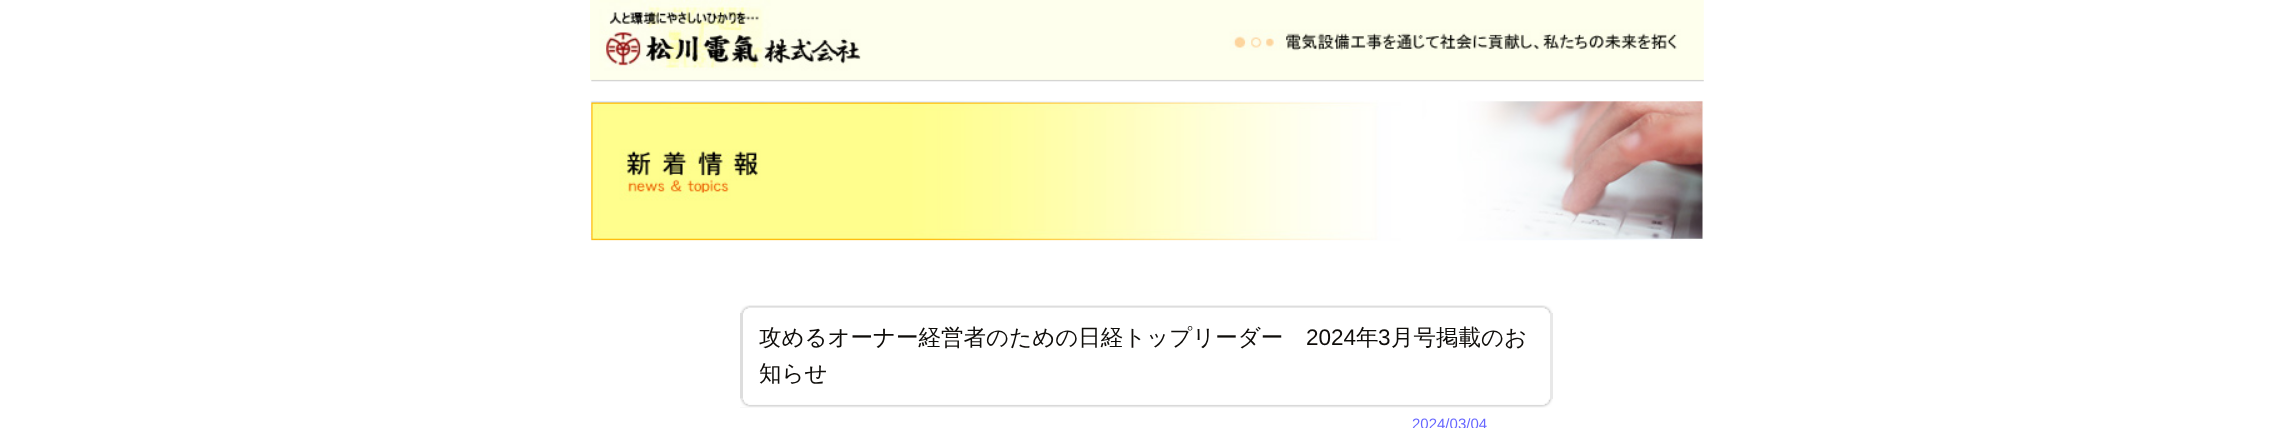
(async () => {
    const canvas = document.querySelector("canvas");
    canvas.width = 2292;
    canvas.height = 428;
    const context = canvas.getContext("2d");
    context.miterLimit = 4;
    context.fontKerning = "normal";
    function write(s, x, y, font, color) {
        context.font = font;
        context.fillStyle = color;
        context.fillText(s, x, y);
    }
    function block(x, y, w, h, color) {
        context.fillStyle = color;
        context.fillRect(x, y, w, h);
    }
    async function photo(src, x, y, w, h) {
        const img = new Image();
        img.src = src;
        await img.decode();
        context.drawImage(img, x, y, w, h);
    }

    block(0, 0, 2292, 428, "rgb(255, 255, 255)");
    await photo("media/1.png", 590, 0, 1114, 82);
    await photo("media/2.png", 590, 100, 1114, 141);
    await photo("media/3.png", 743, 305, 810, 9);
    await photo("media/4.png", 740, 305, 9, 9);
    block(740, 313, 3, 86, "rgb(221, 221, 221)");
    block(1550, 313, 3, 86, "rgb(232, 232, 232)");
    write("攻めるオーナー経営者のための日経トップリーダー", 759, 345, "500 22.5px WenQuanYi Zen Hei", "rgb(15, 13, 10)");
    write("2024", 1306, 345, "22.5px Liberation Sans", "rgb(15, 13, 10)");
    write("年", 1356, 345, "500 22.5px WenQuanYi Zen Hei", "rgb(15, 13, 10)");
    write("3", 1378, 345, "22.5px Liberation Sans", "rgb(15, 13, 10)");
    write("月号掲載のお", 1391, 345, "500 22.5px WenQuanYi Zen Hei", "rgb(15, 13, 10)");
    write("知らせ", 759, 381, "500 22.5px WenQuanYi Zen Hei", "rgb(15, 13, 10)");
    await photo("media/5.png", 740, 398, 813, 10);
    await photo("media/6.png", 740, 398, 9, 9);
    write("2024/03/04", 1412, 429, "15px Liberation Sans", "rgb(102, 102, 255)");
})();
